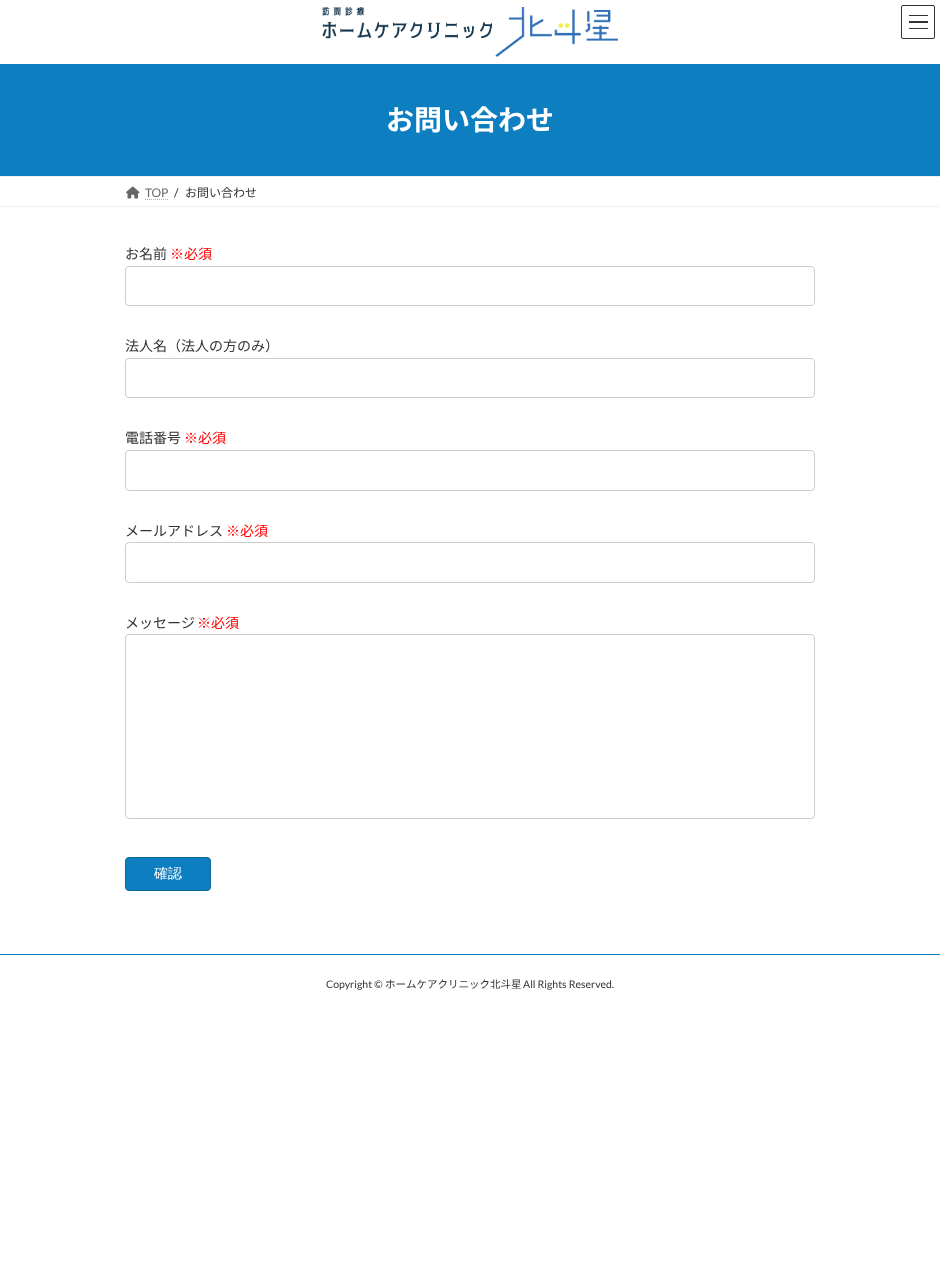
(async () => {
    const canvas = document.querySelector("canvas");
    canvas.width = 940;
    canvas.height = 1279;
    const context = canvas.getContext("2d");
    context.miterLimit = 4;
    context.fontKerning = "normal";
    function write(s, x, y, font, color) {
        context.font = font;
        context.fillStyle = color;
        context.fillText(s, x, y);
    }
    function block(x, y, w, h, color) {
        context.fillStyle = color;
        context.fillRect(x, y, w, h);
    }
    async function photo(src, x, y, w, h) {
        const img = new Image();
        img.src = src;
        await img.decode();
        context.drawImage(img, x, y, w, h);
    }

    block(0, 0, 940, 1279, "rgb(255, 255, 255)");
    await photo("media/1.png", 322, 7, 296, 50);
    block(909, 15, 19, 1, "rgb(51, 51, 51)");
    block(909, 21, 19, 2, "rgb(51, 51, 51)");
    block(909, 28, 19, 1, "rgb(51, 51, 51)");
    context.beginPath();
    context.roundRect(901.5, 5.5, 33, 33, 1.5);
    context.strokeStyle = "rgb(51, 51, 51)";
    context.stroke();
    block(0, 64, 940, 112, "rgb(13, 126, 191)");
    write("お問い合わせ", 386, 130, "bold 28px Noto Sans JP", "rgb(255, 255, 255)");
    block(0, 176, 940, 1, "rgb(240, 240, 240)");
    block(0, 206, 940, 1, "rgb(240, 240, 240)");
    await photo("media/2.png", 126, 186, 14, 13);
    write("TOP", 145, 197, "12px Lato", "rgb(102, 102, 102)");
    context.beginPath();
    context.moveTo(145, 199.5);
    context.lineTo(168, 199.5);
    context.strokeStyle = "rgb(179, 179, 179)";
    context.setLineDash([1, 1]);
    context.stroke();
    write("/", 174, 197, "12px Lato", "rgb(51, 51, 51)");
    write("お問い合わせ", 185, 197, "12px Noto Sans JP", "rgb(51, 51, 51)");
    write("お名前", 125, 259, "14px Noto Sans JP", "rgb(51, 51, 51)");
    write("※必須", 170, 259, "14px Noto Sans JP", "rgb(255, 0, 0)");
    context.beginPath();
    context.roundRect(125.5, 266.5, 689, 39, 3.5);
    context.strokeStyle = "rgb(204, 204, 204)";
    context.setLineDash([]);
    context.stroke();
    write("法人名（法人の方のみ）", 125, 351, "14px Noto Sans JP", "rgb(51, 51, 51)");
    context.beginPath();
    context.roundRect(125.5, 358.5, 689, 39, 3.5);
    context.stroke();
    write("電話番号", 125, 443, "14px Noto Sans JP", "rgb(51, 51, 51)");
    write("※必須", 184, 443, "14px Noto Sans JP", "rgb(255, 0, 0)");
    context.beginPath();
    context.roundRect(125.5, 450.5, 689, 40, 3.5);
    context.stroke();
    write("メールアドレス", 125, 536, "14px Noto Sans JP", "rgb(51, 51, 51)");
    write("※必須", 226, 536, "14px Noto Sans JP", "rgb(255, 0, 0)");
    context.beginPath();
    context.roundRect(125.5, 542.5, 689, 40, 3.5);
    context.stroke();
    write("メッセージ", 125, 628, "14px Noto Sans JP", "rgb(51, 51, 51)");
    write("※必須", 197, 628, "14px Noto Sans JP", "rgb(255, 0, 0)");
    context.beginPath();
    context.roundRect(125.5, 634.5, 689, 184, 3.5);
    context.stroke();
    context.fillStyle = "rgb(13, 126, 191)";
    context.beginPath();
    context.roundRect(125.5, 857.5, 85, 33, 3.5);
    context.fill();
    context.strokeStyle = "rgb(10, 101, 153)";
    context.stroke();
    write("確認", 154, 878, "500 14px WenQuanYi Zen Hei", "rgb(255, 255, 255)");
    block(0, 954, 940, 1, "rgb(13, 126, 191)");
    write("Copyright ©", 326, 988, "10.5px Lato", "rgb(51, 51, 51)");
    write("ホームケアクリニック北斗星", 385, 988, "10.5px Noto Sans JP", "rgb(51, 51, 51)");
    write("All Rights Reserved.", 523, 988, "10.5px Lato", "rgb(51, 51, 51)");
})();
